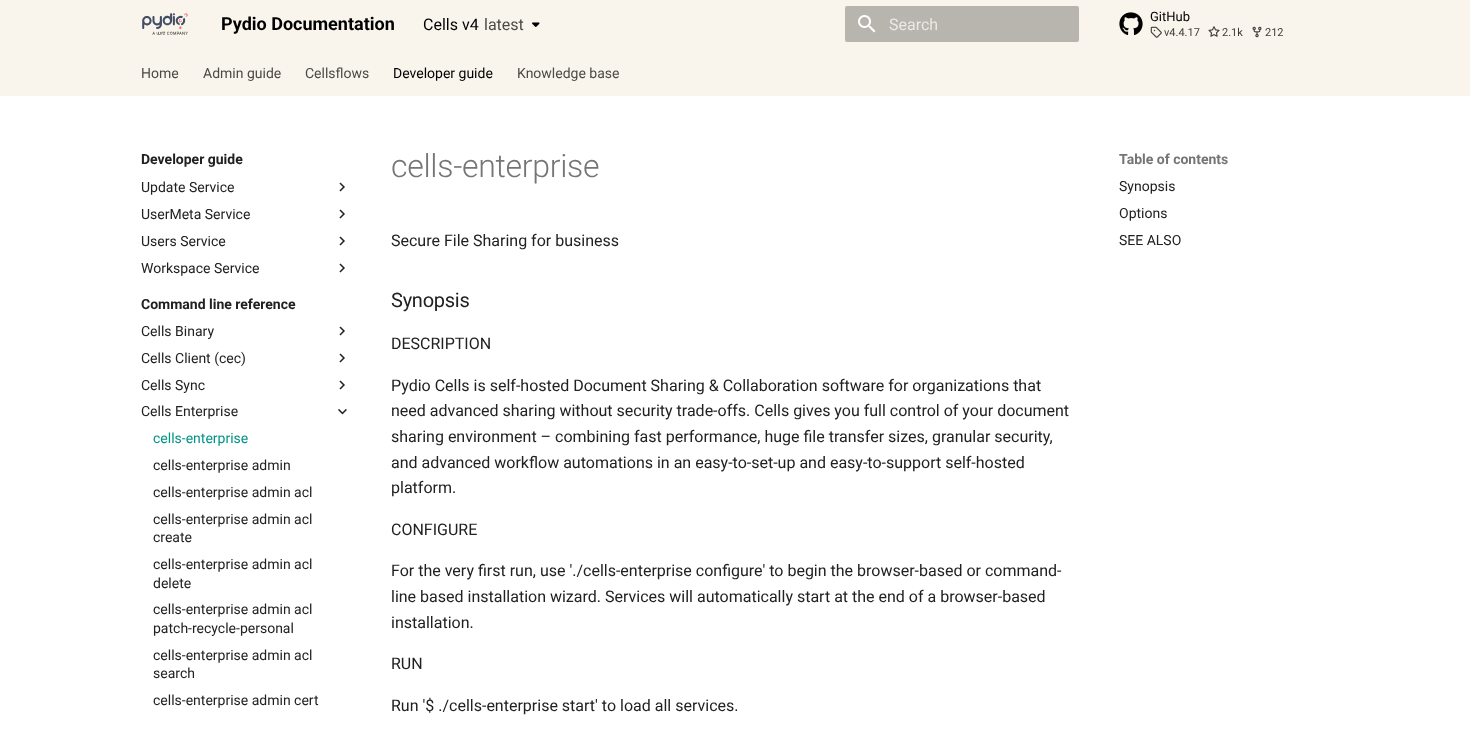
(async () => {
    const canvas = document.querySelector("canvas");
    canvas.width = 1470;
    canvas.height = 732;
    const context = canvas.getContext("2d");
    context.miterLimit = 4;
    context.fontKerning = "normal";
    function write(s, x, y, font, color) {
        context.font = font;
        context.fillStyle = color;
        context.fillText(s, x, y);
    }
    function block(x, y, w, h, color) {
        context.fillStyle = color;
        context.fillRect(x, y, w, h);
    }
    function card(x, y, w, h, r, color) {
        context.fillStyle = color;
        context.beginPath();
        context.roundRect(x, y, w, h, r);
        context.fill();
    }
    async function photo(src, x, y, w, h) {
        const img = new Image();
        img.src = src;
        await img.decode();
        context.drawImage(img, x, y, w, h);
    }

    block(0, 0, 1470, 732, "rgb(255, 255, 255)");
    block(0, 0, 1470, 96, "rgb(249, 245, 236)");
    await photo("media/1.png", 142, 13, 46, 22);
    write("Pydio Documentation", 221, 30, "bold 18px Roboto", "rgb(0, 0, 0)");
    write("Cells v4", 423, 30, "16px Roboto", "rgb(0, 0, 0)");
    write("latest", 484, 30, "16px Roboto", "rgb(75, 74, 71)");
    await photo("media/2.png", 532, 22, 8, 5);
    card(845, 6, 234, 36, 2, "rgb(184, 181, 175)");
    await photo("media/3.png", 858, 15, 18, 18);
    write("Search", 889, 30, "16px Roboto", "rgb(234, 233, 231)");
    await photo("media/4.png", 1119, 12, 24, 23);
    write("GitHub", 1150, 21, "13px Roboto", "rgb(0, 0, 0)");
    await photo("media/5.png", 1150, 26, 12, 12);
    write("v4.4.17", 1164, 36, "11px Roboto", "rgb(62, 61, 59)");
    await photo("media/6.png", 1208, 26, 12, 11);
    write("2.1k", 1222, 36, "11px Roboto", "rgb(62, 61, 59)");
    await photo("media/7.png", 1252, 26, 10, 12);
    write("212", 1265, 36, "11px Roboto", "rgb(62, 61, 59)");
    write("Home", 141, 78, "14px Roboto", "rgb(75, 74, 71)");
    write("Admin guide", 203, 78, "14px Roboto", "rgb(75, 74, 71)");
    write("Cellsflows", 305, 78, "14px Roboto", "rgb(75, 74, 71)");
    write("Developer guide", 393, 78, "14px Roboto", "rgb(0, 0, 0)");
    write("Knowledge base", 517, 78, "14px Roboto", "rgb(75, 74, 71)");
    await photo("media/8.png", 339, 182, 6, 10);
    context.save();
    context.beginPath();
    context.rect(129, 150, 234, 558);
    context.clip();
    context.fillStyle = "rgb(255, 255, 255)";
    context.filter = "blur(4px)";
    context.beginPath();
    context.rect(133, 142, 226, 34);
    context.fill();
    context.filter = "none";
    context.restore();
    write("Developer guide", 141, 164, "bold 14px Roboto", "rgb(33, 33, 33)");
    write("Update Service", 141, 192, "14px Roboto", "rgb(33, 33, 33)");
    write("UserMeta Service", 141, 219, "14px Roboto", "rgb(33, 33, 33)");
    await photo("media/8.png", 339, 209, 6, 10);
    write("Users Service", 141, 246, "14px Roboto", "rgb(33, 33, 33)");
    await photo("media/8.png", 339, 236, 6, 10);
    write("Workspace Service", 141, 273, "14px Roboto", "rgb(33, 33, 33)");
    await photo("media/8.png", 339, 263, 6, 10);
    write("Command line reference", 141, 309, "bold 14px Roboto", "rgb(33, 33, 33)");
    write("Cells Binary", 141, 336, "14px Roboto", "rgb(33, 33, 33)");
    await photo("media/8.png", 339, 326, 6, 10);
    write("Cells Client (cec)", 141, 363, "14px Roboto", "rgb(33, 33, 33)");
    await photo("media/8.png", 339, 353, 6, 10);
    write("Cells Sync", 141, 390, "14px Roboto", "rgb(33, 33, 33)");
    await photo("media/8.png", 339, 380, 6, 10);
    write("Cells Enterprise", 141, 416, "14px Roboto", "rgb(33, 33, 33)");
    await photo("media/9.png", 338, 409, 9, 6);
    write("cells-enterprise", 153, 443, "14px Roboto", "rgb(0, 148, 133)");
    write("cells-enterprise admin", 153, 470, "14px Roboto", "rgb(33, 33, 33)");
    write("cells-enterprise admin acl", 153, 497, "14px Roboto", "rgb(33, 33, 33)");
    write("cells-enterprise admin acl", 153, 524, "14px Roboto", "rgb(33, 33, 33)");
    write("create", 153, 542, "14px Roboto", "rgb(33, 33, 33)");
    write("cells-enterprise admin acl", 153, 569, "14px Roboto", "rgb(33, 33, 33)");
    write("delete", 153, 588, "14px Roboto", "rgb(33, 33, 33)");
    write("cells-enterprise admin acl", 153, 614, "14px Roboto", "rgb(33, 33, 33)");
    write("patch-recycle-personal", 153, 633, "14px Roboto", "rgb(33, 33, 33)");
    write("cells-enterprise admin acl", 153, 660, "14px Roboto", "rgb(33, 33, 33)");
    write("search", 153, 678, "14px Roboto", "rgb(33, 33, 33)");
    write("cells-enterprise admin cert", 153, 705, "14px Roboto", "rgb(33, 33, 33)");
    context.letterSpacing = "-0.3px";
    write("cells-enterprise", 391, 177, "300 32px Roboto", "rgb(117, 117, 117)");
    context.letterSpacing = "0px";
    write("Secure File Sharing for business", 391, 246, "16px Roboto", "rgb(33, 33, 33)");
    context.letterSpacing = "-0.25px";
    write("Synopsis", 391, 307, "20px Roboto", "rgb(33, 33, 33)");
    context.letterSpacing = "0px";
    write("DESCRIPTION", 391, 349, "16px Roboto", "rgb(33, 33, 33)");
    write("Pydio Cells is self-hosted Document Sharing & Collaboration software for organizations that", 391, 391, "16px Roboto", "rgb(33, 33, 33)");
    write("need advanced sharing without security trade-offs. Cells gives you full control of your document", 391, 416, "16px Roboto", "rgb(33, 33, 33)");
    write("sharing environment – combining fast performance, huge file transfer sizes, granular security,", 391, 442, "16px Roboto", "rgb(33, 33, 33)");
    write("and advanced workflow automations in an easy-to-set-up and easy-to-support self-hosted", 391, 468, "16px Roboto", "rgb(33, 33, 33)");
    write("platform.", 391, 493, "16px Roboto", "rgb(33, 33, 33)");
    write("CONFIGURE", 391, 535, "16px Roboto", "rgb(33, 33, 33)");
    write("For the very first run, use './cells-enterprise configure' to begin the browser-based or command-", 391, 576, "16px Roboto", "rgb(33, 33, 33)");
    write("line based installation wizard. Services will automatically start at the end of a browser-based", 391, 602, "16px Roboto", "rgb(33, 33, 33)");
    write("installation.", 391, 628, "16px Roboto", "rgb(33, 33, 33)");
    write("RUN", 391, 669, "16px Roboto", "rgb(33, 33, 33)");
    write("Run '$ ./cells-enterprise start' to load all services.", 391, 711, "16px Roboto", "rgb(33, 33, 33)");
    context.save();
    context.beginPath();
    context.rect(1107, 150, 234, 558);
    context.clip();
    context.beginPath();
    context.moveTo(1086, 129);
    context.lineTo(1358, 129);
    context.lineTo(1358, 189);
    context.lineTo(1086, 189);
    context.closePath();
    context.moveTo(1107, 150);
    context.lineTo(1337, 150);
    context.lineTo(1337, 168);
    context.lineTo(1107, 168);
    context.closePath();
    context.clip("evenodd");
    context.fillStyle = "rgb(255, 255, 255)";
    context.filter = "blur(4px)";
    context.beginPath();
    context.rect(1099, 142, 246, 34);
    context.fill();
    context.filter = "none";
    context.restore();
    write("Table of contents", 1119, 164, "bold 14px Roboto", "rgb(117, 117, 117)");
    write("Synopsis", 1119, 191, "14px Roboto", "rgb(33, 33, 33)");
    write("Options", 1119, 218, "14px Roboto", "rgb(33, 33, 33)");
    write("SEE ALSO", 1119, 245, "14px Roboto", "rgb(33, 33, 33)");
})();
